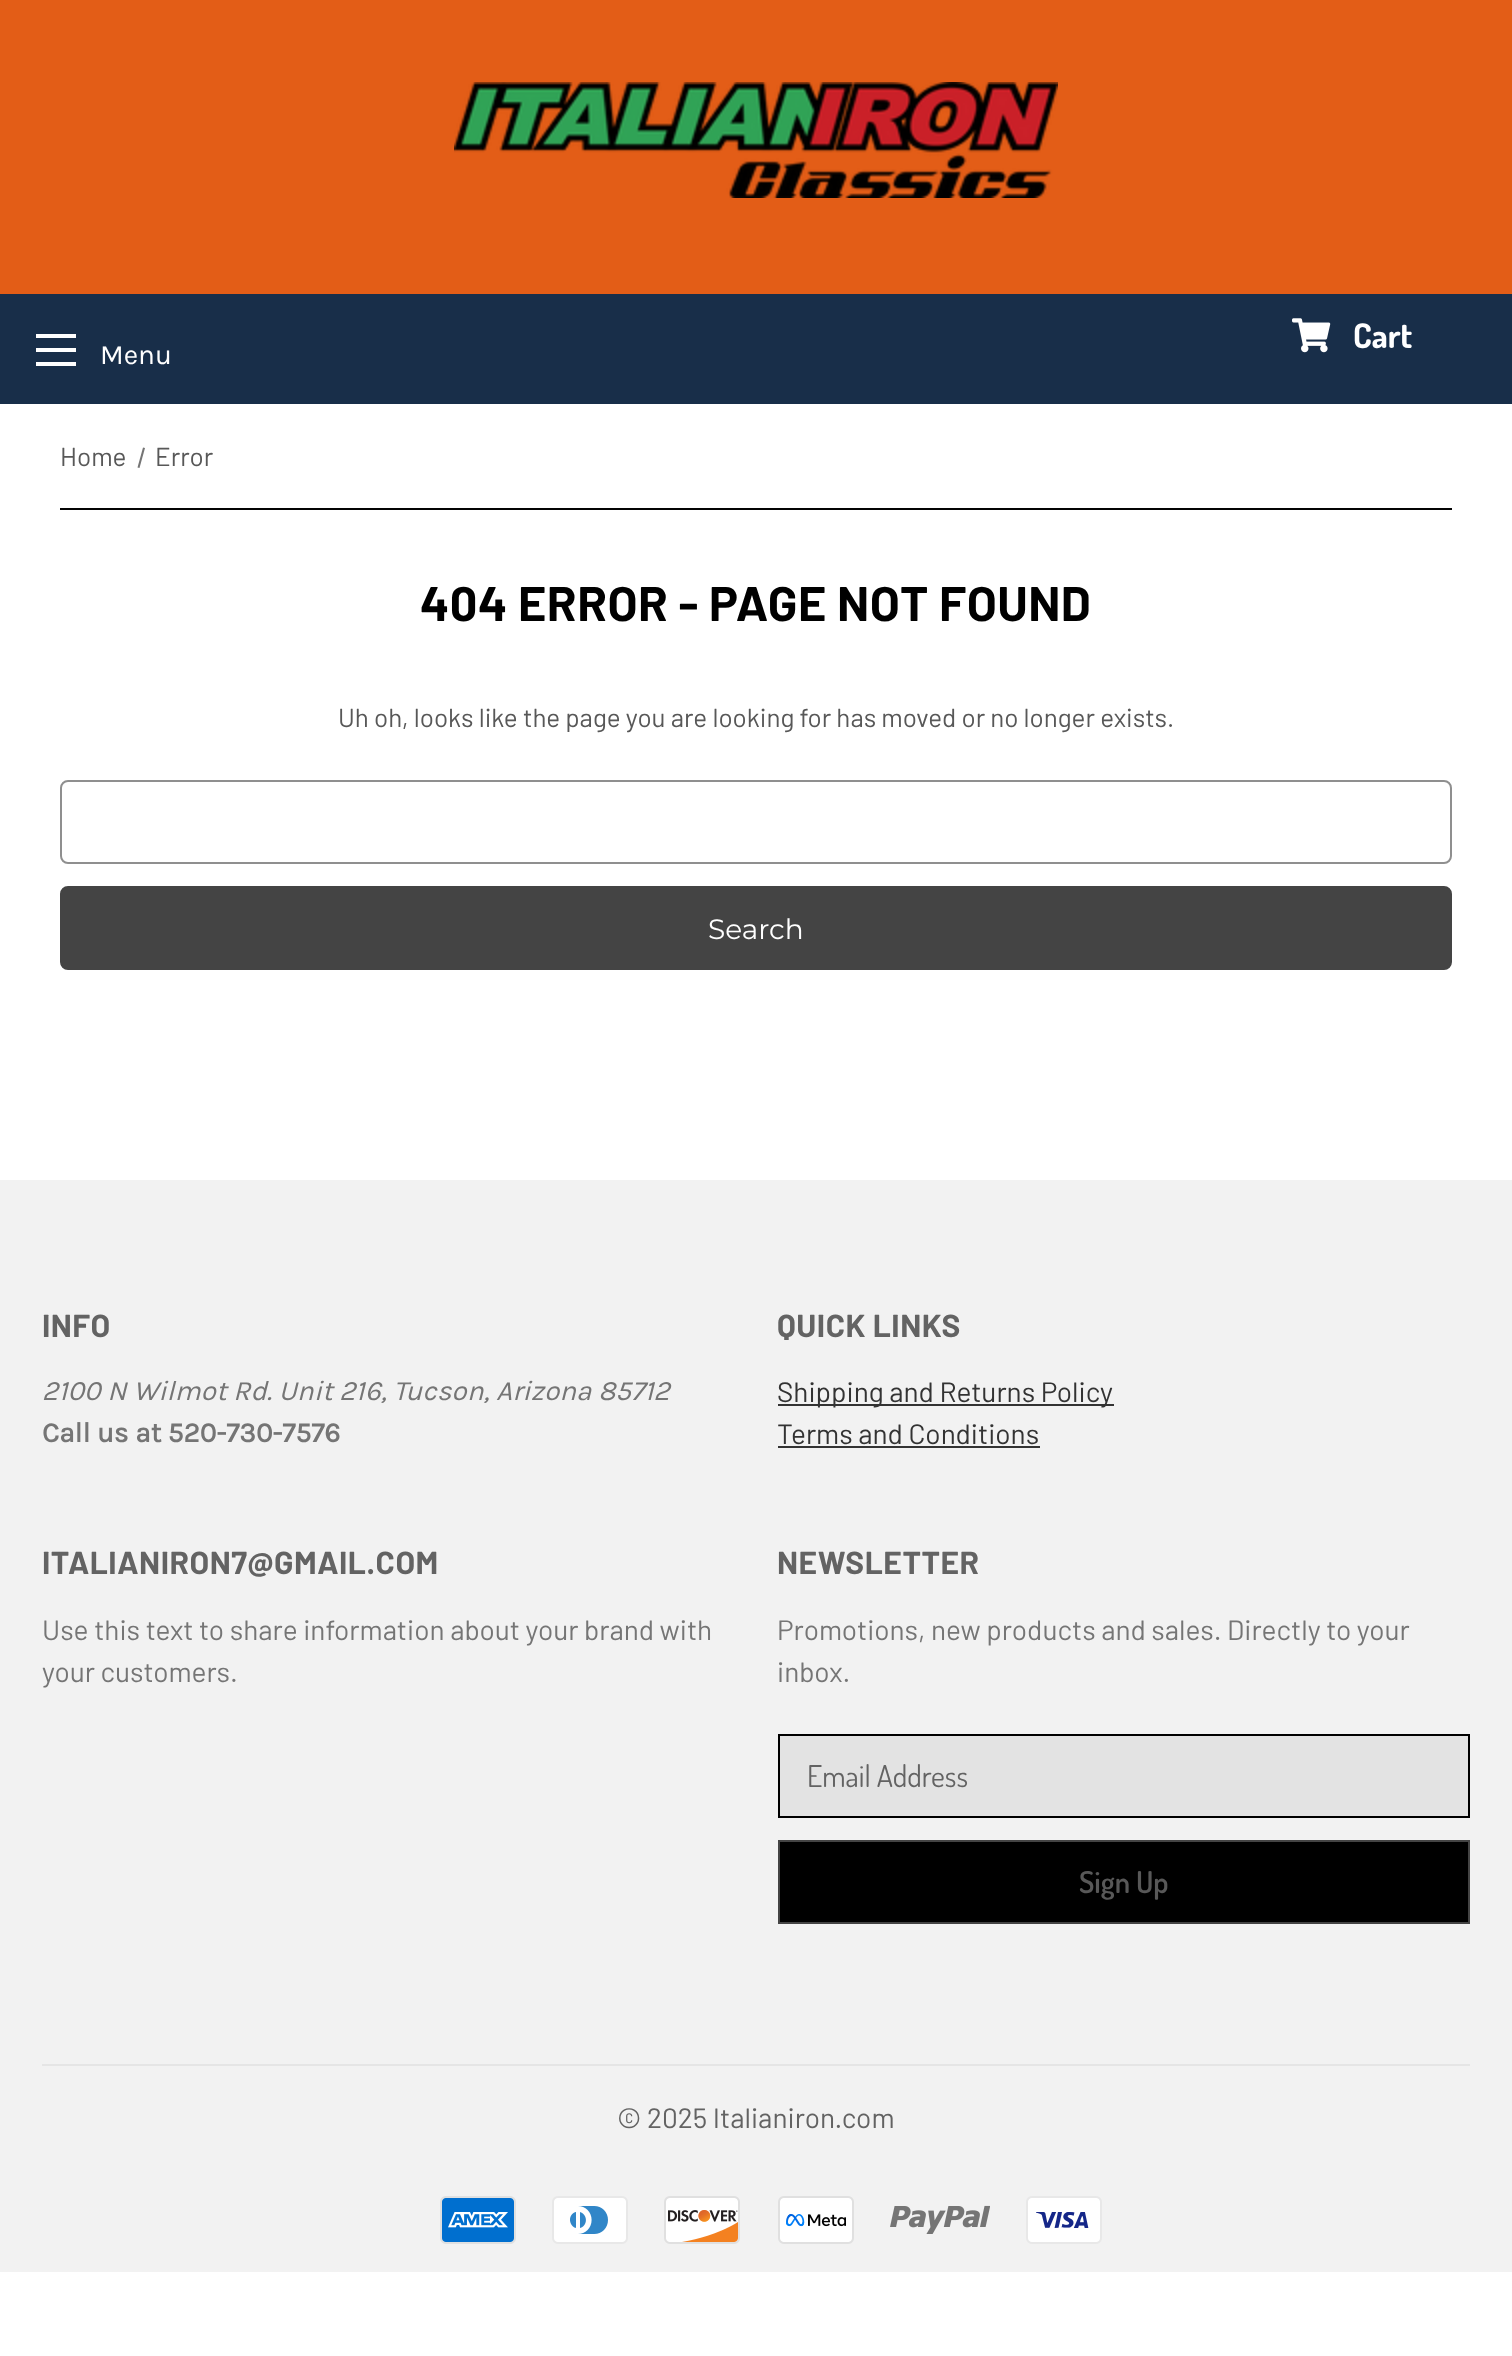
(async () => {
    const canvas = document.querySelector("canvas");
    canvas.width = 1512;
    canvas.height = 2356;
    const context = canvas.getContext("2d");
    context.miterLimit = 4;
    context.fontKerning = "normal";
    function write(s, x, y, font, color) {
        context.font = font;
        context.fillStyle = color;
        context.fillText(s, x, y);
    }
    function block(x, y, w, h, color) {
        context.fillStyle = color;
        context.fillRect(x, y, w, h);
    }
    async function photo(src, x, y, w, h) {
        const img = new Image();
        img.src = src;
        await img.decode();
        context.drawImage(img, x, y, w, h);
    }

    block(0, 0, 1512, 2356, "rgb(255, 255, 255)");
    block(0, 0, 1512, 294, "rgb(227, 93, 23)");
    await photo("media/1.png", 454, 82, 604, 116);
    block(0, 294, 1512, 110, "rgb(24, 46, 73)");
    await photo("media/2.png", 1292, 318, 39, 35);
    write("Cart", 1353, 348, "bold 34px Dosis", "rgb(255, 255, 255)");
    block(36, 348, 40, 4, "rgb(255, 255, 255)");
    block(36, 334, 40, 4, "rgb(255, 255, 255)");
    block(36, 362, 40, 4, "rgb(255, 255, 255)");
    write("Menu", 100, 364, "28px Karla", "rgb(255, 255, 255)");
    block(60, 508, 1392, 2, "rgb(4, 4, 4)");
    write("Home", 60, 466, "26px Barlow", "rgb(88, 88, 88)");
    context.fillStyle = "rgb(117, 117, 117)";
    context.beginPath();
    context.moveTo(143, 447.5);
    context.lineTo(145, 448);
    context.lineTo(139.5, 468);
    context.lineTo(137.5, 467.5);
    context.closePath();
    context.fill();
    write("Error", 155, 466, "26px Barlow", "rgb(88, 88, 88)");
    context.letterSpacing = "0.5px";
    write("404 ERROR - PAGE NOT FOUND", 420, 621, "bold 48.5px Barlow", "rgb(0, 0, 0)");
    context.letterSpacing = "0px";
    write("Uh oh, looks like the page you are looking for has moved or no longer exists.", 338, 727, "26px Barlow", "rgb(88, 88, 88)");
    context.beginPath();
    context.roundRect(61, 781, 1390, 82, 7);
    context.strokeStyle = "rgb(143, 143, 143)";
    context.lineWidth = 2;
    context.stroke();
    context.fillStyle = "rgb(68, 68, 68)";
    context.beginPath();
    context.roundRect(61, 887, 1390, 82, 7);
    context.fill();
    context.strokeStyle = "rgb(68, 68, 68)";
    context.stroke();
    write("Search", 708, 939, "28px Montserrat", "rgb(255, 255, 255)");
    block(0, 1180, 1512, 1092, "rgb(242, 242, 242)");
    context.letterSpacing = "0.5px";
    write("INFO", 42, 1337, "bold 31.75px Barlow", "rgb(99, 99, 99)");
    context.letterSpacing = "0px";
    write("2100 N Wilmot Rd. Unit 216, Tucson, Arizona 85712", 42, 1400, "italic 28px Karla", "rgb(117, 117, 117)");
    write("Call us at 520-730-7576", 42, 1442, "bold 28px Karla", "rgb(117, 117, 117)");
    context.letterSpacing = "0.5px";
    write("QUICK LINKS", 777, 1337, "bold 31.75px Barlow", "rgb(99, 99, 99)");
    block(778, 1404, 336, 2, "rgb(51, 51, 51)");
    context.letterSpacing = "0px";
    write("Shipping and Returns Policy", 777, 1402, "28px Barlow", "rgb(51, 51, 51)");
    write("Terms and Conditions", 777, 1444, "28px Barlow", "rgb(51, 51, 51)");
    block(778, 1446, 262, 2, "rgb(51, 51, 51)");
    context.letterSpacing = "0.5px";
    write("ITALIANIRON7@GMAIL.COM", 42, 1574, "bold 31.75px Barlow", "rgb(99, 99, 99)");
    context.letterSpacing = "0px";
    write("Use this text to share information about your brand with", 42, 1640, "28px Barlow", "rgb(117, 117, 117)");
    write("your customers.", 42, 1682, "28px Barlow", "rgb(117, 117, 117)");
    context.letterSpacing = "0.5px";
    write("NEWSLETTER", 777, 1574, "bold 31.75px Barlow", "rgb(99, 99, 99)");
    context.letterSpacing = "0px";
    write("Promotions, new products and sales. Directly to your", 777, 1640, "28px Barlow", "rgb(117, 117, 117)");
    write("inbox.", 777, 1682, "28px Barlow", "rgb(117, 117, 117)");
    context.fillStyle = "rgb(227, 227, 227)";
    context.beginPath();
    context.rect(779, 1735, 690, 82);
    context.fill();
    context.strokeStyle = "rgb(0, 0, 0)";
    context.stroke();
    write("Email Address", 807, 1787, "30px Dosis", "rgb(99, 99, 99)");
    context.fillStyle = "rgb(0, 0, 0)";
    context.beginPath();
    context.rect(779, 1841, 690, 82);
    context.fill();
    context.strokeStyle = "rgb(68, 68, 68)";
    context.stroke();
    write("Sign Up", 1079, 1893, "600 30px Dosis", "rgb(88, 88, 88)");
    block(42, 2064, 1428, 2, "rgb(229, 229, 229)");
    write("© 2025 Italianiron.com", 617, 2128, "28px Barlow", "rgb(99, 99, 99)");
    await photo("media/3.png", 440, 2196, 76, 48);
    await photo("media/4.png", 552, 2196, 76, 48);
    await photo("media/5.png", 664, 2196, 76, 48);
    await photo("media/6.png", 778, 2196, 76, 48);
    await photo("media/7.png", 890, 2205, 100, 29);
    await photo("media/8.png", 1026, 2196, 76, 48);
})();
